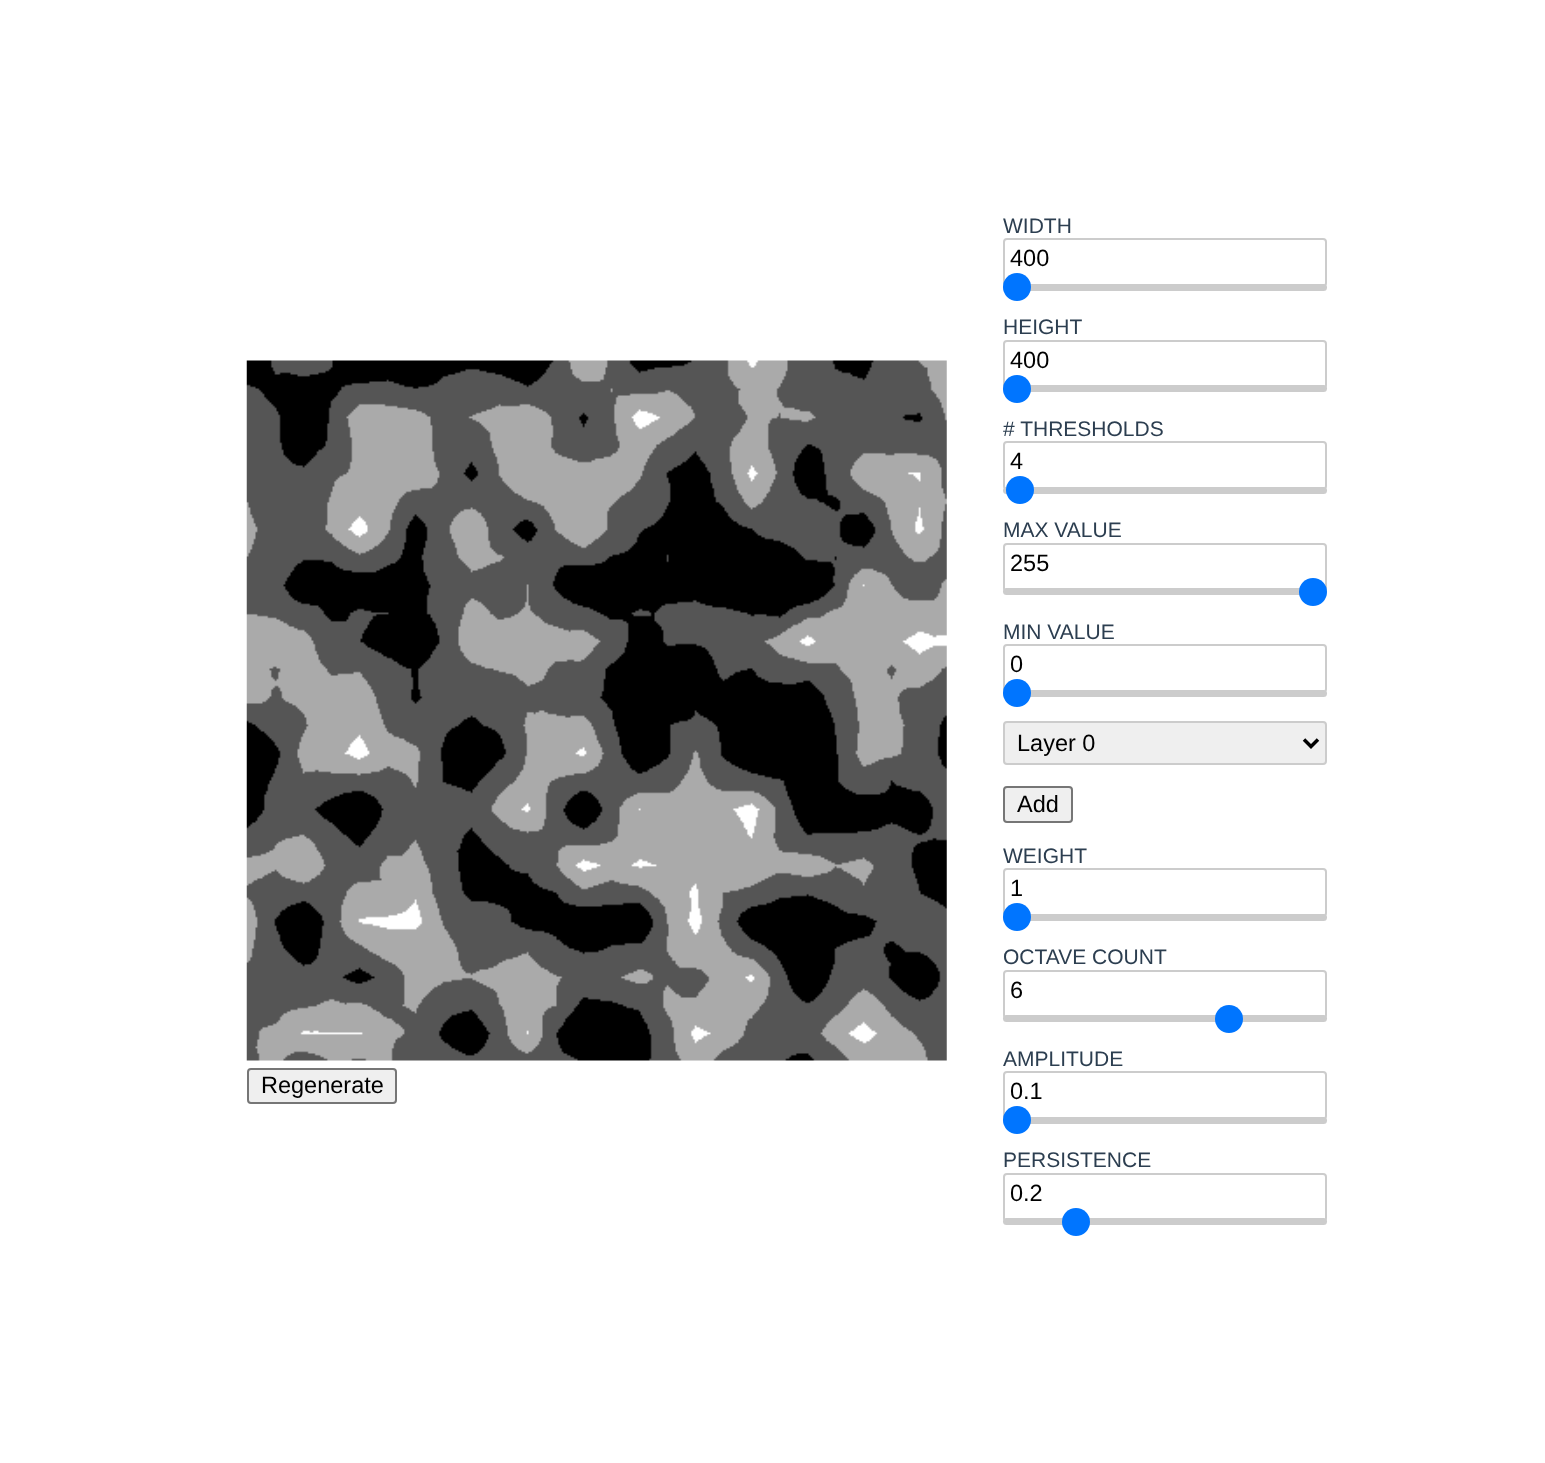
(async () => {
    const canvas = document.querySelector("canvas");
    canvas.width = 1545;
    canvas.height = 1463;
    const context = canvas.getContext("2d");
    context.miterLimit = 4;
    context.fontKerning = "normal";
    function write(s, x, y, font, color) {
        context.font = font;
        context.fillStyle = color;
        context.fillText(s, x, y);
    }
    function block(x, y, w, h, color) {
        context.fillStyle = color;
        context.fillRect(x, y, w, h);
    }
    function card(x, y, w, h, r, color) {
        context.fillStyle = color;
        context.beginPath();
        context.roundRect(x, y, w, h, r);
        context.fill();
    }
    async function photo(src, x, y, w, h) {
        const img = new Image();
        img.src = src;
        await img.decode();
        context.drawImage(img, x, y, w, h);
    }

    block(0, 0, 1545, 1463, "rgb(255, 255, 255)");
    await photo("media/1.png", 246, 360, 701, 701);
    context.fillStyle = "rgb(239, 239, 239)";
    context.beginPath();
    context.roundRect(248, 1069, 148, 34, 3);
    context.fill();
    context.strokeStyle = "rgb(118, 118, 118)";
    context.lineWidth = 2;
    context.stroke();
    write("Regenerate", 261, 1093, "23.5px Liberation Sans", "rgb(0, 0, 0)");
    write("WIDTH", 1003, 233, "21px Liberation Sans", "rgb(44, 62, 80)");
    context.beginPath();
    context.roundRect(1004, 239, 322, 47, 3);
    context.strokeStyle = "rgb(204, 204, 204)";
    context.stroke();
    write("400", 1010, 266, "23.5px Liberation Sans", "rgb(0, 0, 0)");
    card(1003, 284, 324, 7, 3.5, "rgb(204, 204, 204)");
    context.fillStyle = "rgb(0, 117, 255)";
    context.beginPath();
    context.arc(1017, 287, 14, 0, Math.PI * 2);
    context.fill();
    write("HEIGHT", 1003, 334, "21px Liberation Sans", "rgb(44, 62, 80)");
    context.beginPath();
    context.roundRect(1004, 341, 322, 47, 3);
    context.stroke();
    write("400", 1010, 368, "23.5px Liberation Sans", "rgb(0, 0, 0)");
    card(1003, 385, 324, 7, 3.5, "rgb(204, 204, 204)");
    context.fillStyle = "rgb(0, 117, 255)";
    context.beginPath();
    context.arc(1017, 389, 14, 0, Math.PI * 2);
    context.fill();
    write("# THRESHOLDS", 1003, 436, "21px Liberation Sans", "rgb(44, 62, 80)");
    context.beginPath();
    context.roundRect(1004, 442, 322, 47, 3);
    context.stroke();
    write("4", 1010, 469, "23.5px Liberation Sans", "rgb(0, 0, 0)");
    card(1003, 487, 324, 7, 3.5, "rgb(204, 204, 204)");
    context.fillStyle = "rgb(0, 117, 255)";
    context.beginPath();
    context.arc(1020, 490, 14, 0, Math.PI * 2);
    context.fill();
    write("MAX VALUE", 1003, 537, "21px Liberation Sans", "rgb(44, 62, 80)");
    context.beginPath();
    context.roundRect(1004, 544, 322, 47, 3);
    context.stroke();
    write("255", 1010, 571, "23.5px Liberation Sans", "rgb(0, 0, 0)");
    card(1003, 588, 324, 7, 3.5, "rgb(204, 204, 204)");
    context.fillStyle = "rgb(0, 117, 255)";
    context.beginPath();
    context.arc(1313, 592, 14, 0, Math.PI * 2);
    context.fill();
    write("MIN VALUE", 1003, 639, "21px Liberation Sans", "rgb(44, 62, 80)");
    context.beginPath();
    context.roundRect(1004, 645, 322, 47, 3);
    context.stroke();
    write("0", 1010, 672, "23.5px Liberation Sans", "rgb(0, 0, 0)");
    card(1003, 690, 324, 7, 3.5, "rgb(204, 204, 204)");
    context.fillStyle = "rgb(0, 117, 255)";
    context.beginPath();
    context.arc(1017, 693, 14, 0, Math.PI * 2);
    context.fill();
    context.fillStyle = "rgb(239, 239, 239)";
    context.beginPath();
    context.roundRect(1004, 722, 322, 42, 3);
    context.fill();
    context.stroke();
    context.beginPath();
    context.moveTo(1304, 739.5);
    context.lineTo(1311, 746.5);
    context.lineTo(1318, 739.5);
    context.strokeStyle = "rgb(0, 0, 0)";
    context.lineWidth = 3.5;
    context.stroke();
    write("Layer 0", 1017, 751, "23.5px Liberation Sans", "rgb(0, 0, 0)");
    context.fillStyle = "rgb(239, 239, 239)";
    context.beginPath();
    context.roundRect(1004, 787, 68, 35, 3);
    context.fill();
    context.strokeStyle = "rgb(118, 118, 118)";
    context.lineWidth = 2;
    context.stroke();
    write("Add", 1017, 812, "23.5px Liberation Sans", "rgb(0, 0, 0)");
    write("WEIGHT", 1003, 863, "21px Liberation Sans", "rgb(44, 62, 80)");
    context.beginPath();
    context.roundRect(1004, 869, 322, 47, 3);
    context.strokeStyle = "rgb(204, 204, 204)";
    context.stroke();
    write("1", 1010, 896, "23.5px Liberation Sans", "rgb(0, 0, 0)");
    card(1003, 914, 324, 7, 3.5, "rgb(204, 204, 204)");
    context.fillStyle = "rgb(0, 117, 255)";
    context.beginPath();
    context.arc(1017, 917, 14, 0, Math.PI * 2);
    context.fill();
    write("OCTAVE COUNT", 1003, 964, "21px Liberation Sans", "rgb(44, 62, 80)");
    context.beginPath();
    context.roundRect(1004, 971, 322, 47, 3);
    context.stroke();
    write("6", 1010, 998, "23.5px Liberation Sans", "rgb(0, 0, 0)");
    card(1003, 1015, 324, 7, 3.5, "rgb(204, 204, 204)");
    context.fillStyle = "rgb(0, 117, 255)";
    context.beginPath();
    context.arc(1229, 1019, 14, 0, Math.PI * 2);
    context.fill();
    write("AMPLITUDE", 1003, 1066, "21px Liberation Sans", "rgb(44, 62, 80)");
    context.beginPath();
    context.roundRect(1004, 1072, 322, 47, 3);
    context.stroke();
    write("0.1", 1010, 1099, "23.5px Liberation Sans", "rgb(0, 0, 0)");
    card(1003, 1117, 324, 7, 3.5, "rgb(204, 204, 204)");
    context.fillStyle = "rgb(0, 117, 255)";
    context.beginPath();
    context.arc(1017, 1120, 14, 0, Math.PI * 2);
    context.fill();
    write("PERSISTENCE", 1003, 1167, "21px Liberation Sans", "rgb(44, 62, 80)");
    context.beginPath();
    context.roundRect(1004, 1174, 322, 47, 3);
    context.stroke();
    write("0.2", 1010, 1201, "23.5px Liberation Sans", "rgb(0, 0, 0)");
    card(1003, 1218, 324, 7, 3.5, "rgb(204, 204, 204)");
    context.fillStyle = "rgb(0, 117, 255)";
    context.beginPath();
    context.arc(1076, 1222, 14, 0, Math.PI * 2);
    context.fill();
})();
